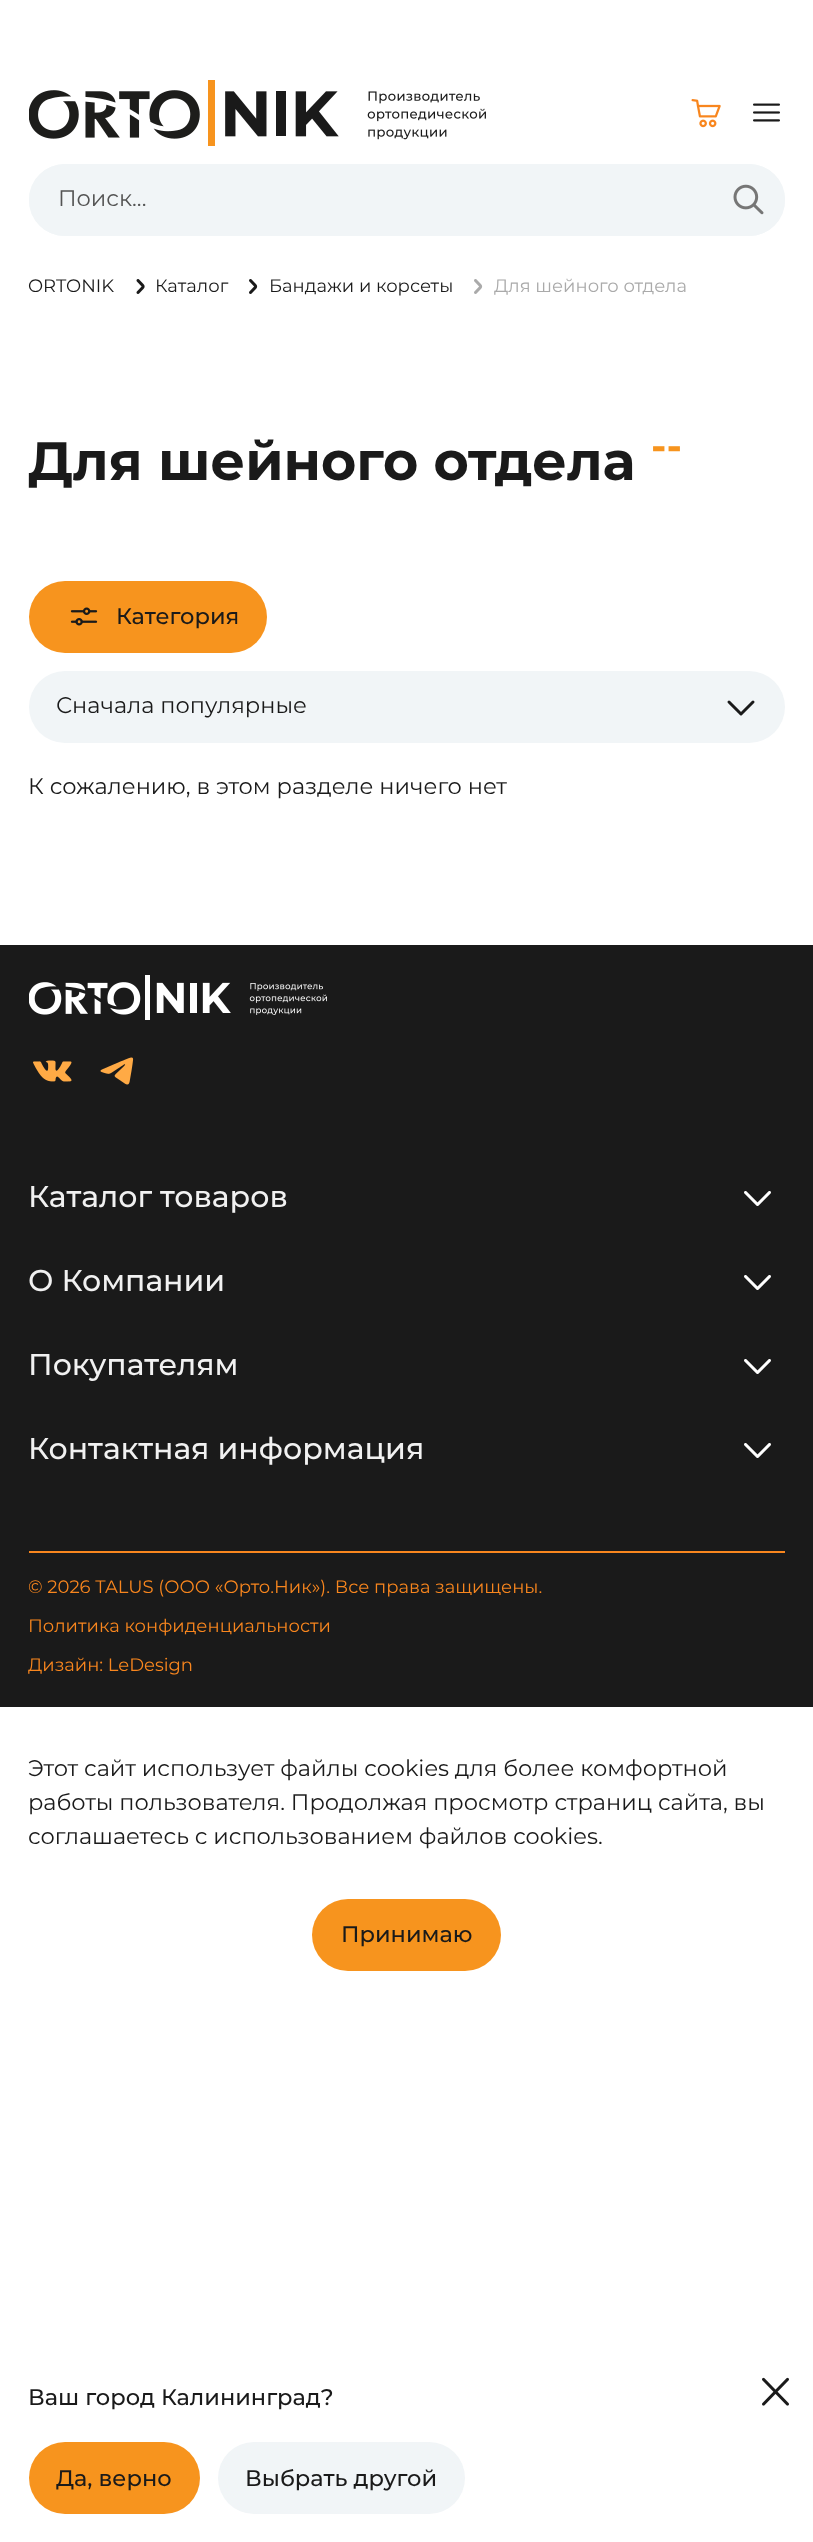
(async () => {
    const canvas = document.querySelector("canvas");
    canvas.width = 813;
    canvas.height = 2542;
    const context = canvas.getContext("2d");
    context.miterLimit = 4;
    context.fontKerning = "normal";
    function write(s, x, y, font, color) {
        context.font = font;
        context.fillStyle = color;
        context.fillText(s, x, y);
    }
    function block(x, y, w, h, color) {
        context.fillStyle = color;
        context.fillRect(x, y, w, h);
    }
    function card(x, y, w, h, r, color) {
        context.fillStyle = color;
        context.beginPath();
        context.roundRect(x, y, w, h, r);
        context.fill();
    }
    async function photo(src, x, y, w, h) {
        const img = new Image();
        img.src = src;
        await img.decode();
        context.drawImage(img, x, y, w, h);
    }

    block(0, 0, 813, 2542, "rgb(255, 255, 255)");
    await photo("media/1.png", 29, 80, 457, 66);
    await photo("media/2.png", 691, 99, 30, 29);
    await photo("media/3.png", 753, 103, 27, 19);
    card(29, 164, 756, 72, 36, "rgb(241, 245, 247)");
    await photo("media/4.png", 733, 184, 31, 31);
    context.beginPath();
    context.roundRect(30, 165, 754, 70, 35);
    context.strokeStyle = "rgb(241, 245, 247)";
    context.lineWidth = 2;
    context.stroke();
    write("Поиск...", 58, 206, "22.5px Montserrat", "rgb(84, 84, 84)");
    write("Ваш город Калининград?", 28, 2405, "500 22.5px Montserrat", "rgb(26, 26, 26)");
    await photo("media/5.png", 762, 2377, 27, 29);
    card(29, 2442, 171, 72, 36, "rgb(247, 148, 30)");
    write("Да, верно", 56, 2486, "500 22.5px Montserrat", "rgb(26, 26, 26)");
    card(218, 2442, 247, 72, 36, "rgb(241, 245, 247)");
    write("Выбрать другой", 245, 2486, "500 22.5px Montserrat", "rgb(26, 26, 26)");
    write("ORTONIK", 28, 292, "18px Montserrat", "rgb(26, 26, 26)");
    await photo("media/6.png", 136, 279, 9, 15);
    write("Каталог", 155, 292, "18px Montserrat", "rgb(26, 26, 26)");
    await photo("media/7.png", 249, 279, 9, 15);
    write("Бандажи и корсеты", 269, 292, "18px Montserrat", "rgb(26, 26, 26)");
    await photo("media/8.png", 474, 279, 9, 15);
    write("Для шейного отдела", 494, 292, "18px Montserrat", "rgb(170, 170, 170)");
    write("Для шейного отдела", 28, 480, "bold 54px Montserrat", "rgb(26, 26, 26)");
    write("--", 651, 460, "bold 40px Montserrat", "rgb(247, 148, 30)");
    card(29, 581, 238, 72, 36, "rgb(247, 148, 30)");
    await photo("media/9.png", 70, 607, 28, 19);
    write("Категория", 116, 624, "500 22.5px Montserrat", "rgb(26, 26, 26)");
    card(29, 671, 756, 72, 36, "rgb(241, 245, 247)");
    write("Сначала популярные", 56, 713, "22.5px Montserrat", "rgb(26, 26, 26)");
    context.beginPath();
    context.moveTo(729, 702);
    context.lineTo(741, 714);
    context.lineTo(753, 702);
    context.strokeStyle = "rgb(26, 26, 26)";
    context.lineWidth = 3;
    context.lineCap = "round";
    context.lineJoin = "round";
    context.stroke();
    write("К сожалению, в этом разделе ничего нет", 28, 794, "22.5px Montserrat", "rgb(26, 26, 26)");
    block(0, 945, 813, 762, "rgb(26, 26, 26)");
    await photo("media/10.png", 29, 975, 298, 45);
    await photo("media/11.png", 33, 1060, 39, 22);
    await photo("media/12.png", 100, 1057, 34, 28);
    write("Каталог товаров", 28, 1207, "500 30px Montserrat", "rgb(241, 241, 241)");
    await photo("media/13.png", 744, 1191, 27, 15);
    write("О Компании", 28, 1291, "500 30px Montserrat", "rgb(241, 241, 241)");
    await photo("media/13.png", 744, 1275, 27, 15);
    write("Покупателям", 28, 1375, "500 30px Montserrat", "rgb(241, 241, 241)");
    await photo("media/13.png", 744, 1359, 27, 15);
    write("Контактная информация", 28, 1459, "500 30px Montserrat", "rgb(241, 241, 241)");
    await photo("media/13.png", 744, 1443, 27, 15);
    block(29, 1551, 756, 2, "rgb(248, 134, 30)");
    write("© 2026 TALUS (ООО «Орто.Ник»). Все права защищены.", 28, 1593, "18px Montserrat", "rgb(248, 134, 30)");
    write("Политика конфиденциальности", 28, 1632, "18px Montserrat", "rgb(248, 134, 30)");
    write("Дизайн: LeDesign", 28, 1671, "18px Montserrat", "rgb(248, 134, 30)");
    write("Этот сайт использует файлы cookies для более комфортной", 28, 1776, "22.5px Montserrat", "rgb(26, 26, 26)");
    write("работы пользователя. Продолжая просмотр страниц сайта, вы", 28, 1810, "22.5px Montserrat", "rgb(26, 26, 26)");
    write("соглашаетесь с использованием файлов cookies.", 28, 1844, "22.5px Montserrat", "rgb(26, 26, 26)");
    card(312, 1899, 189, 72, 36, "rgb(247, 148, 30)");
    write("Принимаю", 341, 1942, "500 22.5px Montserrat", "rgb(26, 26, 26)");
})();
